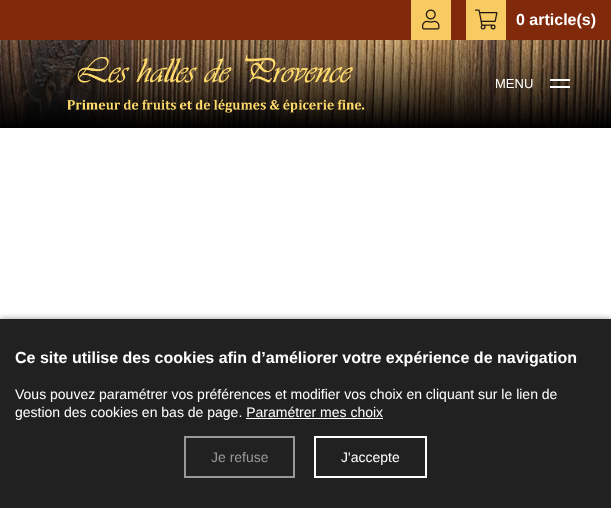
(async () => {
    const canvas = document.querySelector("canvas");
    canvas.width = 611;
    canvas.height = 508;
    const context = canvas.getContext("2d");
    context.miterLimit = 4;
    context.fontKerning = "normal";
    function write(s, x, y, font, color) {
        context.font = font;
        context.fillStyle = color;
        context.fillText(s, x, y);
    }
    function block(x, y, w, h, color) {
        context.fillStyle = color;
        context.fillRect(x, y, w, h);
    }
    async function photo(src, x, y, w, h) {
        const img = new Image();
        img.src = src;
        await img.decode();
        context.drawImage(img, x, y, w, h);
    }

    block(0, 0, 611, 508, "rgb(255, 255, 255)");
    block(0, 0, 611, 40, "rgb(129, 42, 11)");
    block(411, 0, 40, 40, "rgb(248, 203, 98)");
    await photo("media/1.png", 422, 9, 18, 21);
    block(466, 0, 40, 40, "rgb(248, 203, 98)");
    await photo("media/2.png", 475, 9, 23, 21);
    write("0 article(s)", 516, 25, "bold 16px Liberation Sans", "rgb(255, 255, 255)");
    await photo("media/3.png", 0, 40, 611, 88);
    await photo("media/4.png", 67, 55, 298, 58);
    write("MENU", 495, 88, "13px Liberation Sans", "rgb(255, 255, 255)");
    block(550, 79, 20, 2, "rgb(255, 255, 255)");
    block(550, 86, 20, 2, "rgb(255, 255, 255)");
    context.fillStyle = "rgba(0, 0, 0, 0.4)";
    context.filter = "blur(3px)";
    context.beginPath();
    context.rect(0, 319, 611, 189);
    context.fill();
    context.filter = "none";
    block(0, 319, 611, 189, "rgb(33, 33, 33)");
    write("Ce site utilise des cookies afin d’améliorer votre expérience de navigation", 15, 363, "bold 16px Liberation Sans", "rgb(255, 255, 255)");
    write("Vous pouvez paramétrer vos préférences et modifier vos choix en cliquant sur le lien de", 15, 399, "14px Liberation Sans", "rgb(255, 255, 255)");
    write("gestion des cookies en bas de page. Paramétrer mes choix", 15, 417, "14px Liberation Sans", "rgb(255, 255, 255)");
    block(246, 418, 137, 1, "rgb(255, 255, 255)");
    context.strokeStyle = "rgb(153, 153, 153)";
    context.lineWidth = 2;
    context.strokeRect(185, 437, 109, 40);
    write("Je refuse", 211, 462, "14px Liberation Sans", "rgb(153, 153, 153)");
    context.strokeStyle = "rgb(255, 255, 255)";
    context.strokeRect(315, 437, 111, 40);
    write("J'accepte", 341, 462, "14px Liberation Sans", "rgb(255, 255, 255)");
})();
